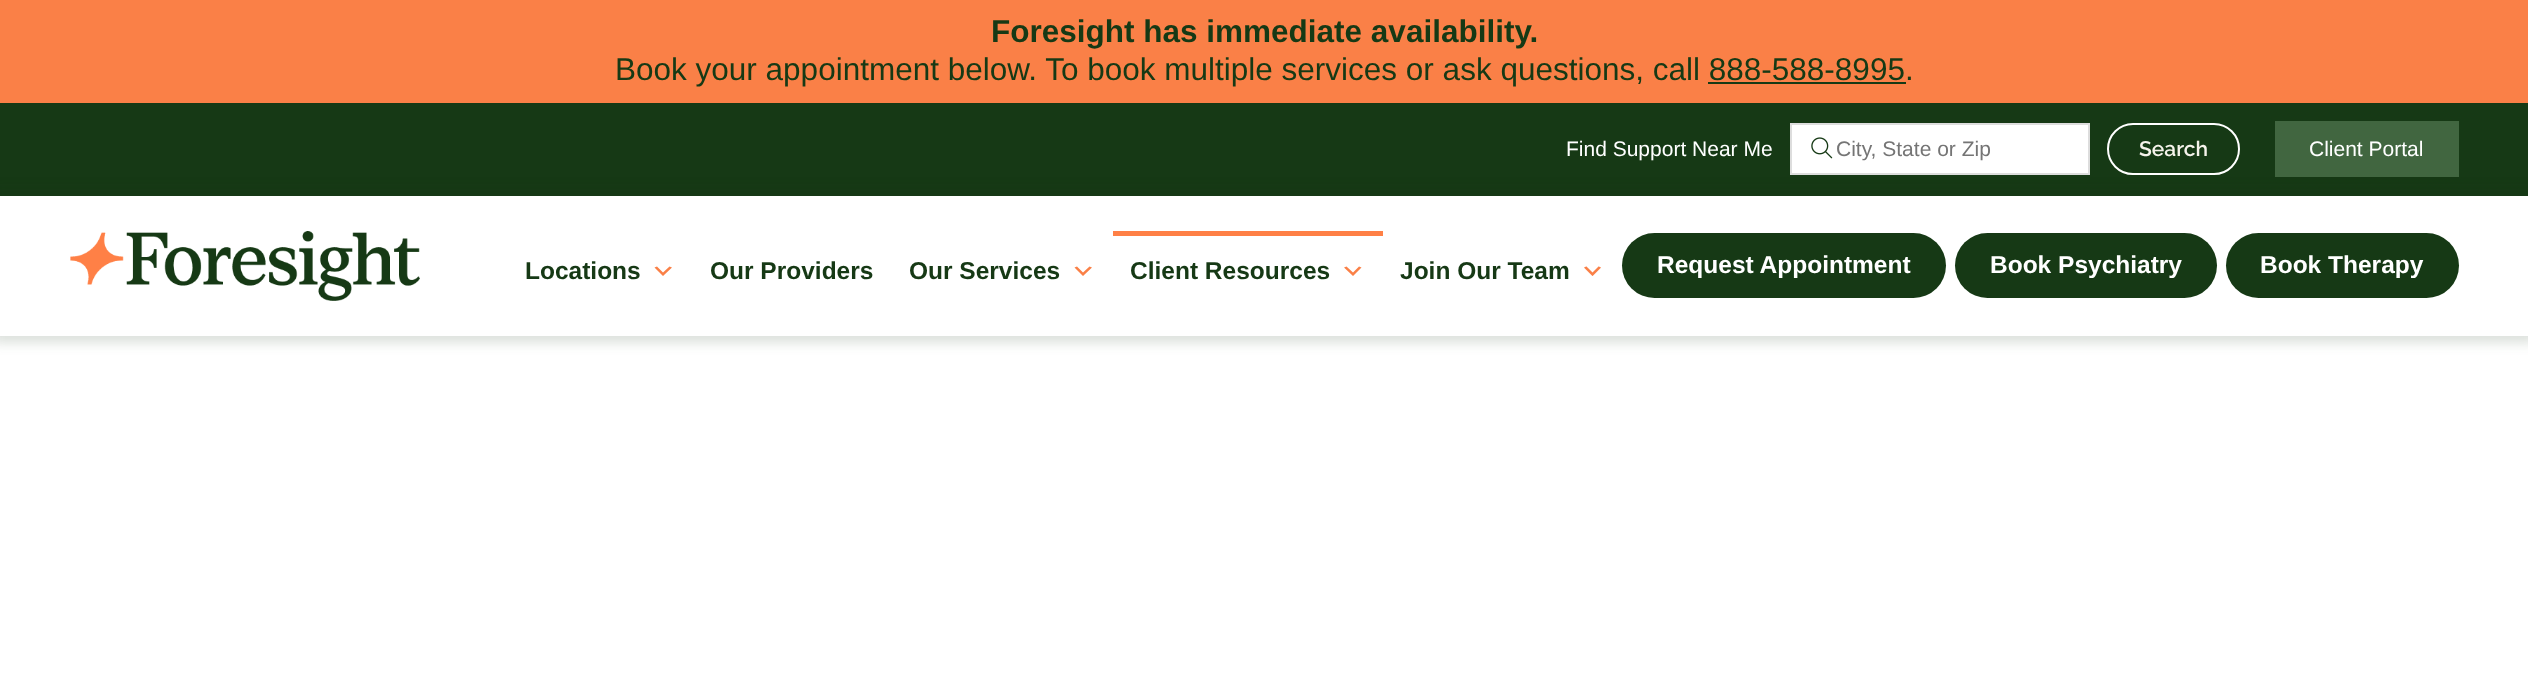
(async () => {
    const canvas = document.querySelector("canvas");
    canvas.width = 2528;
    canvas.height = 685;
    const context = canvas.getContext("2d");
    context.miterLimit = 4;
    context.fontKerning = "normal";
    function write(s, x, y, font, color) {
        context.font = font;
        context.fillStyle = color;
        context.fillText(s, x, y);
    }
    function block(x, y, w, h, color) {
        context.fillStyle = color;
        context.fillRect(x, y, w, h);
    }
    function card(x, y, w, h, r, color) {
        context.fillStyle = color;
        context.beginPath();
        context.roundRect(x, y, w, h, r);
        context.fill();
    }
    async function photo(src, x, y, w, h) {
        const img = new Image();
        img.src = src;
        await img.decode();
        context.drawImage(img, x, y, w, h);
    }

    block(0, 0, 2528, 685, "rgb(255, 255, 255)");
    block(0, 0, 2528, 103, "rgb(250, 128, 71)");
    write("Foresight has immediate availability.", 991, 42, "bold 31.5px Liberation Sans", "rgb(22, 57, 21)");
    write("Book your appointment below. To book multiple services or ask questions, call 888-588-8995.", 615, 80, "31.5px Liberation Sans", "rgb(22, 57, 21)");
    block(1708, 82, 198, 2, "rgb(22, 57, 21)");
    block(0, 103, 2528, 93, "rgb(22, 57, 21)");
    write("Find Support Near Me", 1566, 156, "21px Liberation Sans", "rgb(255, 255, 255)");
    context.save();
    context.beginPath();
    context.moveTo(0, 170);
    context.lineTo(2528, 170);
    context.lineTo(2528, 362);
    context.lineTo(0, 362);
    context.closePath();
    context.moveTo(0, 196);
    context.lineTo(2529, 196);
    context.lineTo(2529, 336);
    context.lineTo(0, 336);
    context.closePath();
    context.clip("evenodd");
    context.fillStyle = "rgba(22, 56, 21, 0.15)";
    context.filter = "blur(6px)";
    context.beginPath();
    context.rect(-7, 189, 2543, 154);
    context.fill();
    context.filter = "none";
    context.restore();
    context.beginPath();
    context.rect(1791, 124, 298, 50);
    context.fill();
    context.strokeStyle = "rgb(221, 221, 221)";
    context.lineWidth = 2;
    context.stroke();
    await photo("media/1.png", 1811, 137, 22, 22);
    write("City, State or Zip", 1836, 156, "21px Liberation Sans", "rgb(117, 117, 117)");
    context.beginPath();
    context.roundRect(2108, 124, 131, 50, 25);
    context.strokeStyle = "rgb(255, 255, 255)";
    context.stroke();
    write("Search", 2139, 156, "100 21px Raleway", "rgb(245, 243, 235)");
    block(2275, 121, 184, 56, "rgb(65, 102, 64)");
    write("Client Portal", 2309, 156, "21px Liberation Sans", "rgb(255, 255, 255)");
    await photo("media/2.png", 70, 231, 350, 70);
    write("Locations", 525, 279, "bold 24.5px Liberation Sans", "rgb(22, 57, 21)");
    context.fillStyle = "rgb(250, 128, 71)";
    context.beginPath();
    context.moveTo(657, 266.5);
    context.lineTo(663, 272.5);
    context.lineTo(669.5, 266.5);
    context.lineTo(672, 267.5);
    context.lineTo(663, 276);
    context.lineTo(654.5, 267.5);
    context.closePath();
    context.fill();
    write("Our Providers", 710, 279, "bold 24.5px Liberation Sans", "rgb(22, 57, 21)");
    write("Our Services", 909, 279, "bold 24.5px Liberation Sans", "rgb(22, 57, 21)");
    context.fillStyle = "rgb(250, 128, 71)";
    context.beginPath();
    context.moveTo(1077, 266.5);
    context.lineTo(1083, 272.5);
    context.lineTo(1089.5, 266.5);
    context.lineTo(1092, 267.5);
    context.lineTo(1083, 276);
    context.lineTo(1074.5, 267.5);
    context.closePath();
    context.fill();
    block(1113, 231, 270, 5, "rgb(255, 128, 70)");
    write("Client Resources", 1130, 279, "bold 24.5px Liberation Sans", "rgb(22, 57, 21)");
    context.fillStyle = "rgb(250, 128, 71)";
    context.beginPath();
    context.moveTo(1346.5, 266.5);
    context.lineTo(1353, 272.5);
    context.lineTo(1359, 266.5);
    context.lineTo(1361.5, 267.5);
    context.lineTo(1353, 276);
    context.lineTo(1344, 267.5);
    context.closePath();
    context.fill();
    write("Join Our Team", 1400, 279, "bold 24.5px Liberation Sans", "rgb(22, 57, 21)");
    await photo("media/3.png", 1584, 266, 17, 10);
    card(1622, 233, 324, 65, 32.5, "rgb(22, 57, 21)");
    write("Request Appointment", 1657, 273, "bold 24.5px Liberation Sans", "rgb(255, 255, 255)");
    card(1955, 233, 262, 65, 32.5, "rgb(22, 57, 21)");
    write("Book Psychiatry", 1990, 273, "bold 24.5px Liberation Sans", "rgb(255, 255, 255)");
    card(2226, 233, 233, 65, 32.5, "rgb(22, 57, 21)");
    write("Book Therapy", 2260, 273, "bold 24.5px Liberation Sans", "rgb(255, 255, 255)");
})();
